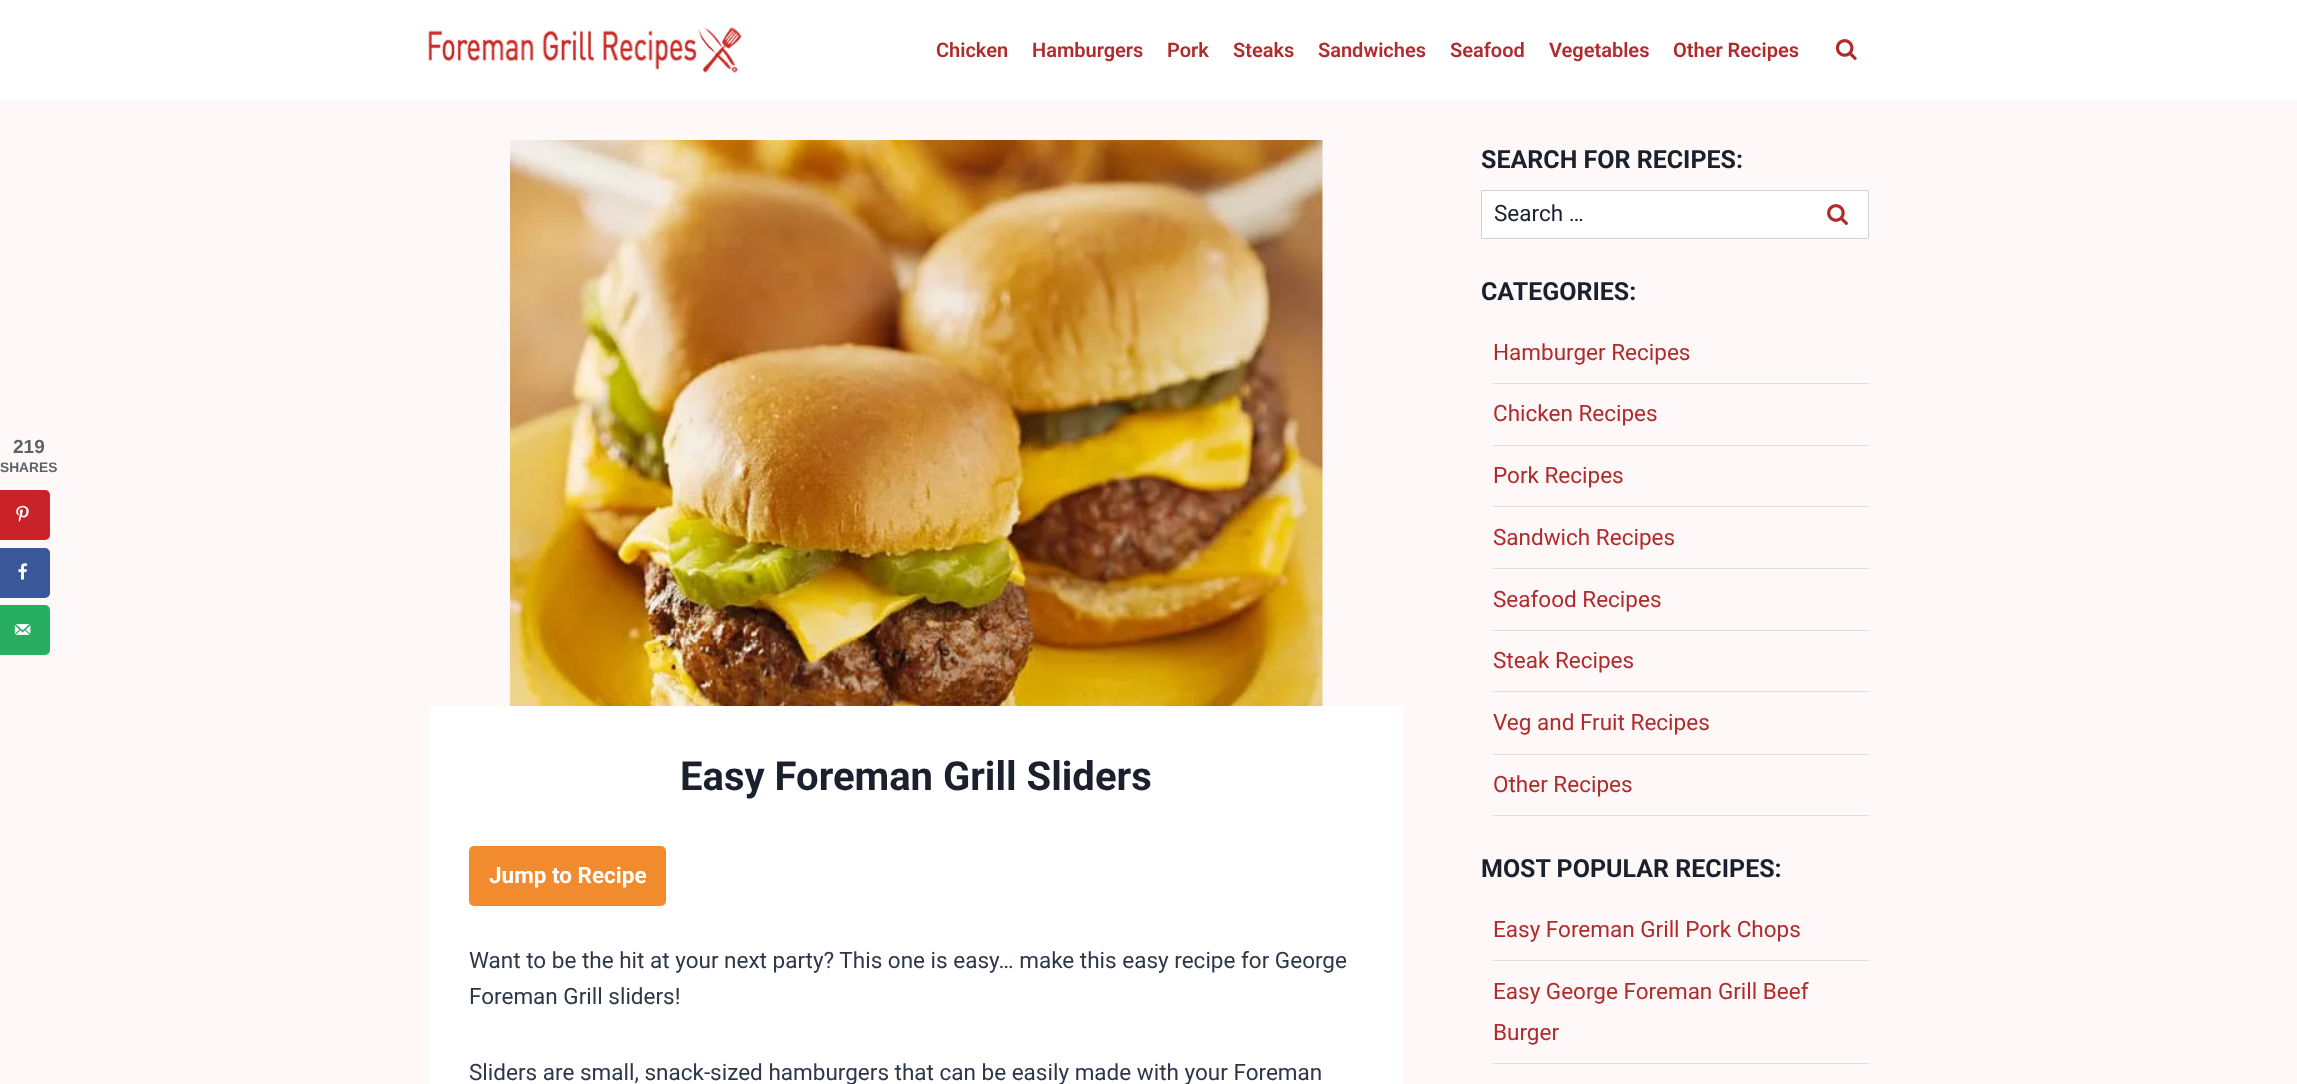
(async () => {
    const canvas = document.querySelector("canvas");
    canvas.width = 2297;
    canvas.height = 1084;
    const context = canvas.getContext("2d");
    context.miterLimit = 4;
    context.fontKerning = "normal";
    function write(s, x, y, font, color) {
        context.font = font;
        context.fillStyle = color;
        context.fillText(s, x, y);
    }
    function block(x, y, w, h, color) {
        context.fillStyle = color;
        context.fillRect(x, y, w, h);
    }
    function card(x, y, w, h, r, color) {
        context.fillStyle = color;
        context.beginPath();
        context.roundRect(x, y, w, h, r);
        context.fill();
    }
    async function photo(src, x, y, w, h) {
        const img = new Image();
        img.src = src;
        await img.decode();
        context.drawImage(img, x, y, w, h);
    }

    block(0, 0, 2297, 1084, "rgb(254, 248, 248)");
    write("219", 13, 453, "bold 19px Liberation Sans", "rgb(93, 99, 104)");
    write("SHARES", 0, 472, "bold 13.75px Liberation Sans", "rgb(93, 99, 104)");
    context.fillStyle = "rgb(201, 34, 40)";
    context.beginPath();
    context.roundRect(1.5, 491.5, 47, 47, [0, 3.5, 3.5, 0]);
    context.fill();
    context.strokeStyle = "rgb(201, 34, 40)";
    context.lineWidth = 3;
    context.stroke();
    await photo("media/1.png", 16, 505, 13, 17);
    context.fillStyle = "rgb(58, 87, 154)";
    context.beginPath();
    context.roundRect(1.5, 549.5, 47, 47, [0, 3.5, 3.5, 0]);
    context.fill();
    context.strokeStyle = "rgb(58, 87, 154)";
    context.stroke();
    await photo("media/2.png", 18, 563, 9, 17);
    context.fillStyle = "rgb(39, 174, 96)";
    context.beginPath();
    context.roundRect(1.5, 606.5, 47, 47, [0, 3.5, 3.5, 0]);
    context.fill();
    context.strokeStyle = "rgb(39, 174, 96)";
    context.stroke();
    await photo("media/3.png", 14, 624, 17, 11);
    block(0, 0, 2297, 100, "rgb(255, 255, 255)");
    await photo("media/4.png", 428, 27, 314, 46);
    write("Chicken", 936, 57, "600 20px Roboto", "rgb(176, 43, 43)");
    write("Hamburgers", 1032, 57, "600 20px Roboto", "rgb(176, 43, 43)");
    write("Pork", 1167, 57, "600 20px Roboto", "rgb(176, 43, 43)");
    write("Steaks", 1233, 57, "600 20px Roboto", "rgb(176, 43, 43)");
    write("Sandwiches", 1318, 57, "600 20px Roboto", "rgb(176, 43, 43)");
    write("Seafood", 1450, 57, "600 20px Roboto", "rgb(176, 43, 43)");
    write("Vegetables", 1549, 57, "600 20px Roboto", "rgb(176, 43, 43)");
    write("Other Recipes", 1673, 57, "600 20px Roboto", "rgb(176, 43, 43)");
    await photo("media/5.png", 1835, 39, 22, 21);
    await photo("media/6.png", 510, 140, 813, 566);
    card(429, 706, 974, 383, 5, "rgb(255, 255, 255)");
    write("Easy Foreman Grill Sliders", 680, 790, "bold 40px Roboto", "rgb(26, 32, 44)");
    card(469, 846, 197, 60, 5, "rgb(242, 138, 46)");
    write("Jump to Recipe", 489, 883, "bold 22.5px Roboto", "rgb(255, 255, 255)");
    write("Want to be the hit at your next party? This one is easy… make this easy recipe for George", 469, 968, "22.5px Roboto", "rgb(45, 55, 72)");
    write("Foreman Grill sliders!", 469, 1004, "22.5px Roboto", "rgb(45, 55, 72)");
    write("Sliders are small, snack-sized hamburgers that can be easily made with your Foreman", 469, 1080, "22.5px Roboto", "rgb(45, 55, 72)");
    write("SEARCH FOR RECIPES:", 1481, 168, "bold 25px Roboto", "rgb(26, 32, 44)");
    context.fillStyle = "rgb(255, 255, 255)";
    context.beginPath();
    context.rect(1481.5, 190.5, 387, 48);
    context.fill();
    context.strokeStyle = "rgb(203, 213, 224)";
    context.lineWidth = 1;
    context.stroke();
    write("Search …", 1494, 221, "22.5px Roboto", "rgb(26, 32, 44)");
    await photo("media/7.png", 1827, 204, 21, 21);
    write("CATEGORIES:", 1481, 300, "bold 25px Roboto", "rgb(26, 32, 44)");
    block(1493, 383, 376, 1, "rgb(221, 221, 221)");
    write("Hamburger Recipes", 1493, 360, "22.5px Roboto", "rgb(176, 43, 43)");
    block(1493, 445, 376, 1, "rgb(221, 221, 221)");
    write("Chicken Recipes", 1493, 421, "22.5px Roboto", "rgb(176, 43, 43)");
    block(1493, 506, 376, 1, "rgb(221, 221, 221)");
    write("Pork Recipes", 1493, 483, "22.5px Roboto", "rgb(176, 43, 43)");
    block(1493, 568, 376, 1, "rgb(221, 221, 221)");
    write("Sandwich Recipes", 1493, 545, "22.5px Roboto", "rgb(176, 43, 43)");
    block(1493, 630, 376, 1, "rgb(221, 221, 221)");
    write("Seafood Recipes", 1493, 607, "22.5px Roboto", "rgb(176, 43, 43)");
    block(1493, 691, 376, 1, "rgb(221, 221, 221)");
    write("Steak Recipes", 1493, 668, "22.5px Roboto", "rgb(176, 43, 43)");
    block(1493, 754, 376, 1, "rgb(221, 221, 221)");
    write("Veg and Fruit Recipes", 1493, 730, "22.5px Roboto", "rgb(176, 43, 43)");
    block(1493, 815, 376, 1, "rgb(221, 221, 221)");
    write("Other Recipes", 1493, 792, "22.5px Roboto", "rgb(176, 43, 43)");
    write("MOST POPULAR RECIPES:", 1481, 877, "bold 25px Roboto", "rgb(26, 32, 44)");
    block(1493, 960, 376, 1, "rgb(221, 221, 221)");
    write("Easy Foreman Grill Pork Chops", 1493, 937, "22.5px Roboto", "rgb(176, 43, 43)");
    block(1493, 1063, 376, 1, "rgb(221, 221, 221)");
    write("Easy George Foreman Grill Beef", 1493, 999, "22.5px Roboto", "rgb(176, 43, 43)");
    write("Burger", 1493, 1040, "22.5px Roboto", "rgb(176, 43, 43)");
})();
